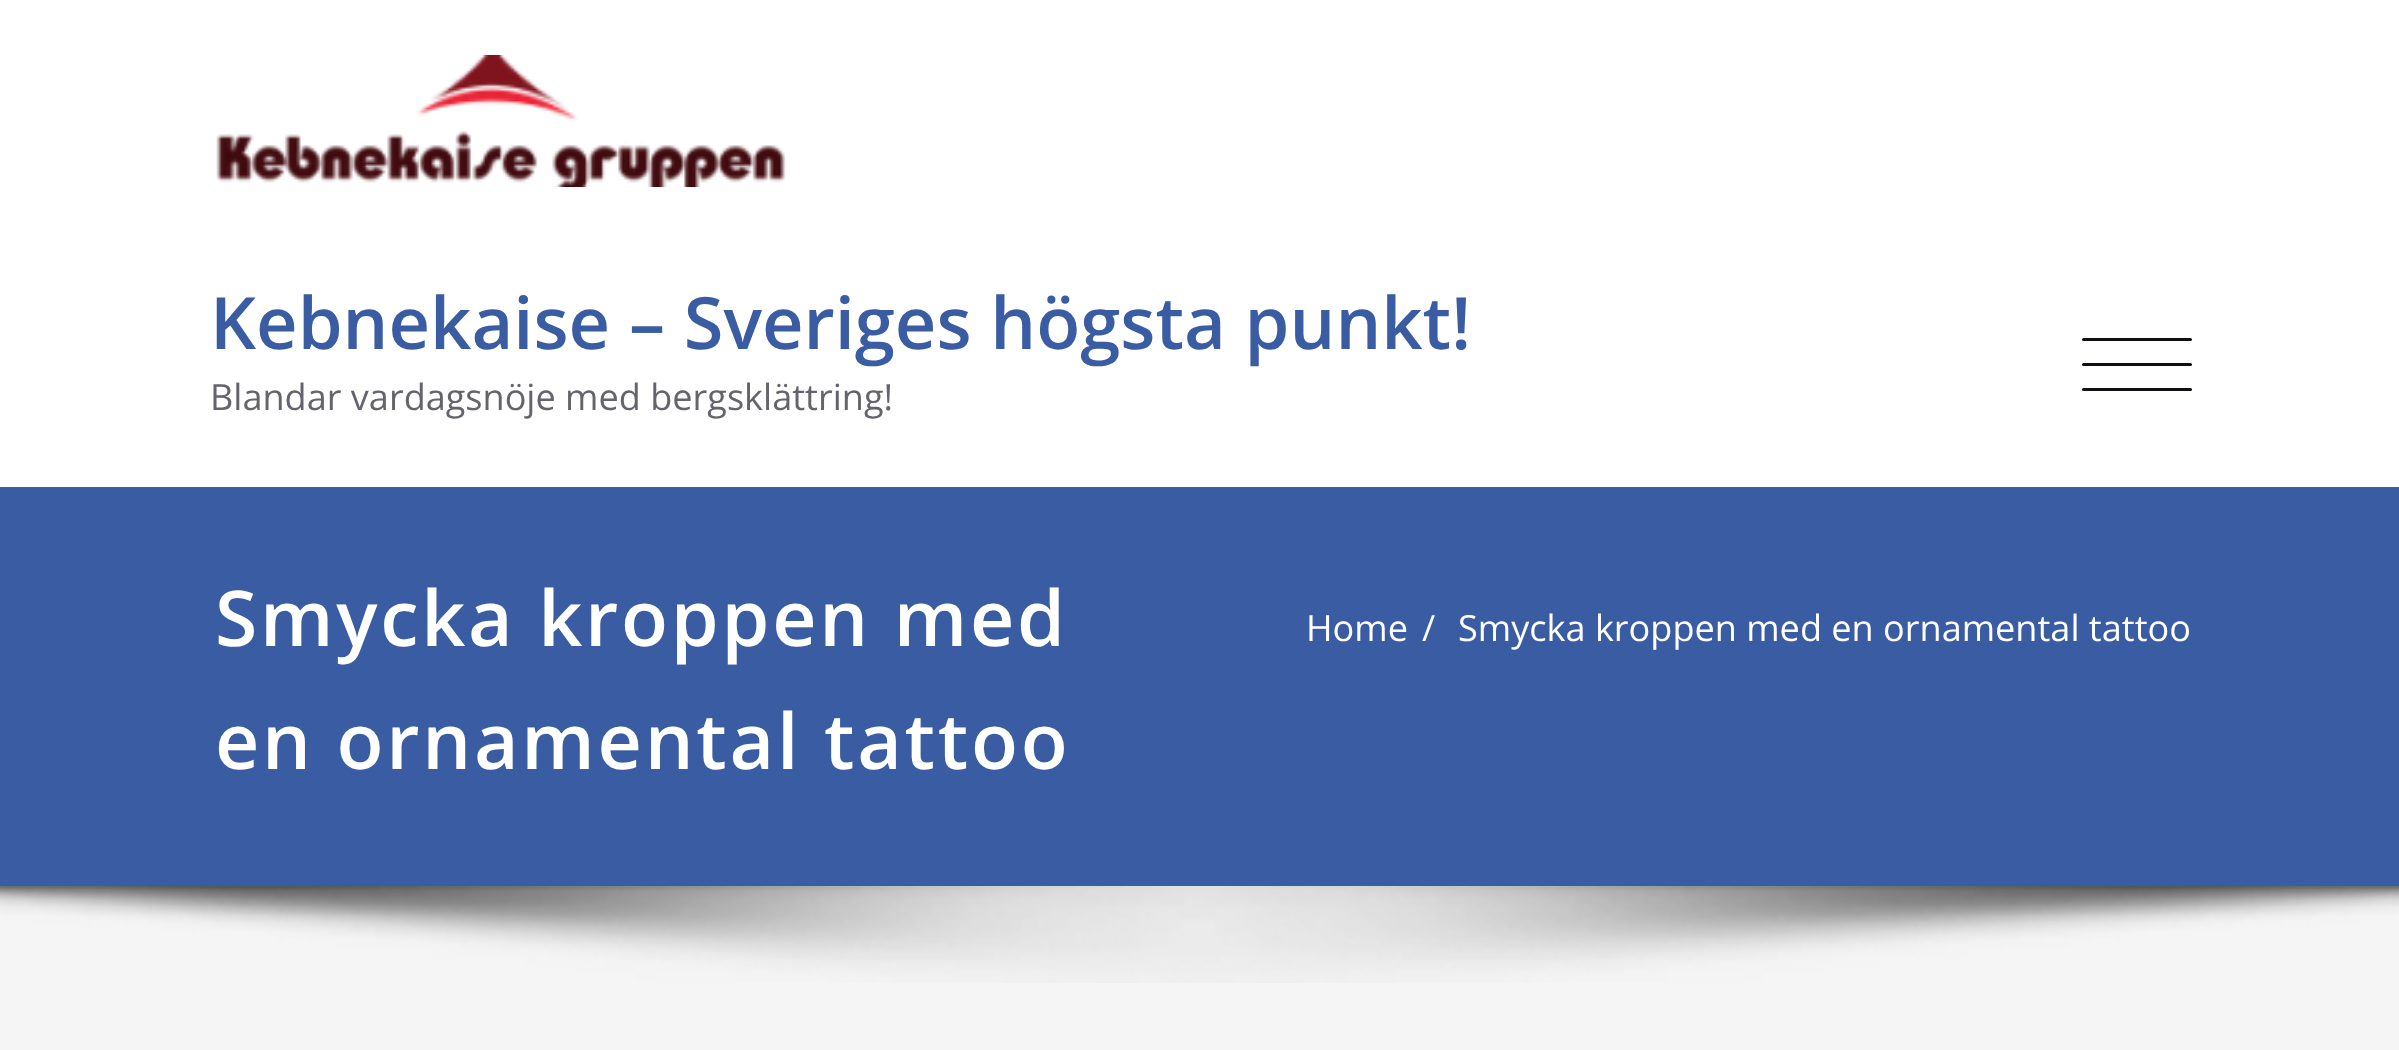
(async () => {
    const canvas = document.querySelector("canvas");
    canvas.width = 2399;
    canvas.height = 1050;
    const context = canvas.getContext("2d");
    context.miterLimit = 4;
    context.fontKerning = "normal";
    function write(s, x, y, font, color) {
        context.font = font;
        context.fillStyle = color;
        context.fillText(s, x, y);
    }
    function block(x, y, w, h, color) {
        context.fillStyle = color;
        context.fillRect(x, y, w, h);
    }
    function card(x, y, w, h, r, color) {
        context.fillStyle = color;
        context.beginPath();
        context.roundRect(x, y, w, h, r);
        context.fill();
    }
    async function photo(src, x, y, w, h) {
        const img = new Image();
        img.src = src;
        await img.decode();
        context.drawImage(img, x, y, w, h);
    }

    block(0, 0, 2399, 1050, "rgb(245, 245, 245)");
    block(0, 0, 2399, 487, "rgb(255, 255, 255)");
    await photo("media/1.png", 216, 55, 571, 132);
    write("Kebnekaise – Sveriges högsta punkt!", 210, 349, "600 72.2px Open Sans", "rgb(57, 92, 163)");
    write("Blandar vardagsnöje med bergsklättring!", 210, 410, "36.1px Open Sans", "rgb(100, 100, 109)");
    card(2082, 338, 110, 3, 1.5, "rgb(15, 15, 22)");
    card(2082, 363, 110, 3, 1.5, "rgb(15, 15, 22)");
    card(2082, 388, 110, 3, 1.5, "rgb(15, 15, 22)");
    block(0, 487, 2399, 399, "rgb(57, 92, 163)");
    context.letterSpacing = "2.75px";
    write("Smycka kroppen med", 215, 646, "600 77px Open Sans", "rgb(255, 255, 255)");
    write("en ornamental tattoo", 215, 769, "600 77px Open Sans", "rgb(255, 255, 255)");
    context.letterSpacing = "0px";
    write("Home", 1306, 641, "36.1px Open Sans", "rgb(255, 255, 255)");
    write("/", 1422, 641, "36.1px Open Sans", "rgb(255, 255, 255)");
    write("Smycka kroppen med en ornamental tattoo", 1458, 641, "36.1px Open Sans", "rgb(255, 255, 255)");
    await photo("media/2.png", 0, 886, 2399, 97);
})();
